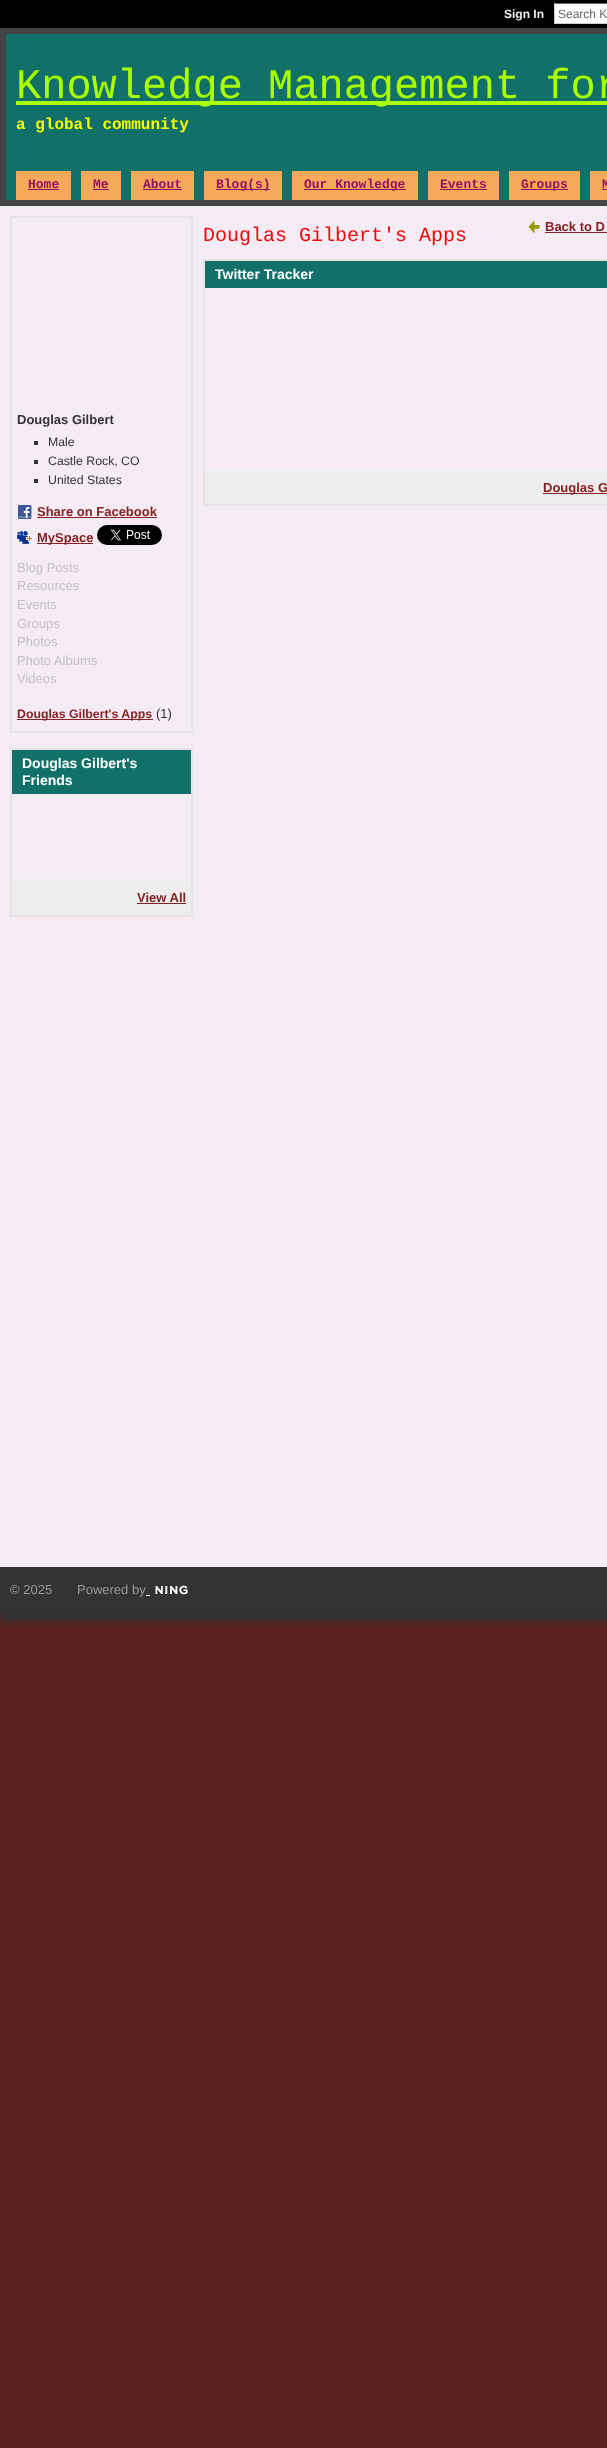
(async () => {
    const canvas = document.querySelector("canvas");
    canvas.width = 607;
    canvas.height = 2448;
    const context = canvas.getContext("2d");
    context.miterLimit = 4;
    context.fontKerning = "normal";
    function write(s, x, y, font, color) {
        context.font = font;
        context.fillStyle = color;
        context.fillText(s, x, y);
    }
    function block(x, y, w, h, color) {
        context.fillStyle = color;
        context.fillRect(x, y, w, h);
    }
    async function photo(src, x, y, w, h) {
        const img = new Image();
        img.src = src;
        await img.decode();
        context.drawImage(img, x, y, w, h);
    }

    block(0, 0, 607, 2448, "rgb(92, 31, 31)");
    block(0, 0, 607, 28, "rgb(0, 0, 0)");
    write("Sign In", 504, 18, "bold 12px Liberation Sans", "rgb(238, 238, 238)");
    block(555, 4, 52, 19, "rgb(255, 255, 255)");
    block(554, 3, 53, 1, "rgb(102, 102, 102)");
    block(554, 23, 53, 1, "rgb(204, 204, 204)");
    block(554, 3, 1, 21, "rgb(204, 204, 204)");
    write("Search K", 558, 18, "12px Liberation Sans", "rgb(102, 102, 102)");
    context.fillStyle = "rgb(17, 112, 104)";
    context.beginPath();
    context.rect(3, 31, 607, 172);
    context.fill();
    context.strokeStyle = "rgb(68, 68, 68)";
    context.lineWidth = 6;
    context.stroke();
    block(16, 101, 591, 4, "rgb(170, 255, 0)");
    write("Knowledge Management for", 16, 98, "42px Liberation Mono", "rgb(170, 255, 0)");
    write("a global community", 16, 129, "bold 16px Liberation Mono", "rgb(247, 255, 0)");
    block(16, 171, 55, 29, "rgb(245, 170, 90)");
    write("Home", 28, 188, "bold 13px Liberation Mono", "rgb(150, 18, 97)");
    block(28, 189, 31, 1, "rgb(150, 18, 97)");
    block(81, 171, 40, 29, "rgb(245, 170, 90)");
    write("Me", 93, 188, "bold 13px Liberation Mono", "rgb(150, 18, 97)");
    block(93, 189, 16, 1, "rgb(150, 18, 97)");
    block(131, 171, 63, 29, "rgb(245, 170, 90)");
    write("About", 143, 188, "bold 13px Liberation Mono", "rgb(150, 18, 97)");
    block(143, 189, 39, 1, "rgb(150, 18, 97)");
    block(204, 171, 78, 29, "rgb(245, 170, 90)");
    block(216, 189, 54, 1, "rgb(150, 18, 97)");
    write("Blog(s)", 216, 188, "bold 13px Liberation Mono", "rgb(150, 18, 97)");
    block(292, 171, 126, 29, "rgb(245, 170, 90)");
    block(304, 189, 102, 1, "rgb(150, 18, 97)");
    write("Our Knowledge", 304, 188, "bold 13px Liberation Mono", "rgb(150, 18, 97)");
    block(428, 171, 71, 29, "rgb(245, 170, 90)");
    write("Events", 440, 188, "bold 13px Liberation Mono", "rgb(150, 18, 97)");
    block(440, 189, 47, 1, "rgb(150, 18, 97)");
    block(509, 171, 71, 29, "rgb(245, 170, 90)");
    block(521, 189, 47, 1, "rgb(150, 18, 97)");
    write("Groups", 521, 188, "bold 13px Liberation Mono", "rgb(150, 18, 97)");
    block(590, 171, 17, 29, "rgb(245, 170, 90)");
    write("M", 602, 188, "bold 13px Liberation Mono", "rgb(150, 18, 97)");
    block(602, 189, 5, 1, "rgb(150, 18, 97)");
    block(0, 206, 607, 1361, "rgb(245, 235, 245)");
    write("Douglas Gilbert's Apps", 203, 241, "20px Liberation Mono", "rgb(232, 9, 9)");
    await photo("media/1.png", 528, 220, 12, 14);
    write("Back to D", 545, 231, "bold 13px Liberation Sans", "rgb(133, 34, 34)");
    block(545, 232, 62, 1, "rgb(133, 34, 34)");
    context.strokeStyle = "rgb(229, 229, 229)";
    context.lineWidth = 2;
    context.strokeRect(204, 260, 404, 245);
    block(205, 261, 402, 27, "rgb(17, 112, 104)");
    write("Twitter Tracker", 215, 279, "bold 14px Liberation Sans", "rgb(255, 255, 255)");
    block(205, 469, 402, 35, "rgb(237, 237, 237)");
    block(543, 493, 64, 1, "rgb(133, 34, 34)");
    write("Douglas G", 543, 492, "bold 13px Liberation Sans", "rgb(133, 34, 34)");
    context.strokeRect(11, 217, 181, 515);
    write("Douglas Gilbert", 17, 424, "bold 13px Liberation Sans", "rgb(51, 51, 51)");
    block(34, 441, 4, 4, "rgb(51, 51, 51)");
    write("Male", 48, 446, "12.3px Liberation Sans", "rgb(51, 51, 51)");
    block(34, 460, 4, 4, "rgb(51, 51, 51)");
    write("Castle Rock, CO", 48, 465, "12.3px Liberation Sans", "rgb(51, 51, 51)");
    block(34, 479, 4, 4, "rgb(51, 51, 51)");
    write("United States", 48, 484, "12.3px Liberation Sans", "rgb(51, 51, 51)");
    await photo("media/2.png", 18, 505, 14, 14);
    write("Share on Facebook", 37, 516, "bold 13px Liberation Sans", "rgb(133, 34, 34)");
    block(37, 517, 120, 1, "rgb(133, 34, 34)");
    await photo("media/3.png", 17, 531, 16, 13);
    block(37, 543, 56, 1, "rgb(133, 34, 34)");
    write("MySpace", 37, 542, "bold 13px Liberation Sans", "rgb(133, 34, 34)");
    await photo("media/4.png", 97, 525, 65, 20);
    write("Blog Posts", 17, 572, "13px Liberation Sans", "rgb(198, 192, 198)");
    write("Resources", 17, 590, "13px Liberation Sans", "rgb(198, 192, 198)");
    write("Events", 17, 609, "13px Liberation Sans", "rgb(198, 192, 198)");
    write("Groups", 17, 628, "13px Liberation Sans", "rgb(198, 192, 198)");
    write("Photos", 17, 646, "13px Liberation Sans", "rgb(198, 192, 198)");
    write("Photo Albums", 17, 665, "13px Liberation Sans", "rgb(198, 192, 198)");
    write("Videos", 17, 683, "13px Liberation Sans", "rgb(198, 192, 198)");
    block(17, 719, 136, 1, "rgb(133, 34, 34)");
    write("Douglas Gilbert's Apps", 17, 718, "bold 12.3px Liberation Sans", "rgb(133, 34, 34)");
    write("(1)", 156, 718, "13px Liberation Sans", "rgb(51, 51, 51)");
    context.strokeRect(11, 749, 181, 167);
    block(12, 750, 179, 44, "rgb(17, 112, 104)");
    write("Douglas Gilbert's", 22, 768, "bold 14px Liberation Sans", "rgb(255, 255, 255)");
    write("Friends", 22, 785, "bold 14px Liberation Sans", "rgb(255, 255, 255)");
    block(12, 879, 179, 36, "rgb(237, 237, 237)");
    write("View All", 137, 902, "bold 13px Liberation Sans", "rgb(133, 34, 34)");
    block(137, 903, 49, 1, "rgb(133, 34, 34)");
    context.fillStyle = "rgb(51, 51, 51)";
    context.filter = "blur(3px)";
    context.beginPath();
    context.rect(0, 1575, 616, 47);
    context.fill();
    context.filter = "none";
    block(0, 1567, 607, 47, "rgb(51, 51, 51)");
    write("© 2025", 10, 1594, "13px Liberation Sans", "rgb(153, 153, 153)");
    write("Powered by", 77, 1594, "13px Liberation Sans", "rgb(153, 153, 153)");
    await photo("media/5.png", 155, 1585, 33, 10);
    block(146, 1595, 4, 1, "rgb(255, 255, 255)");
})();
